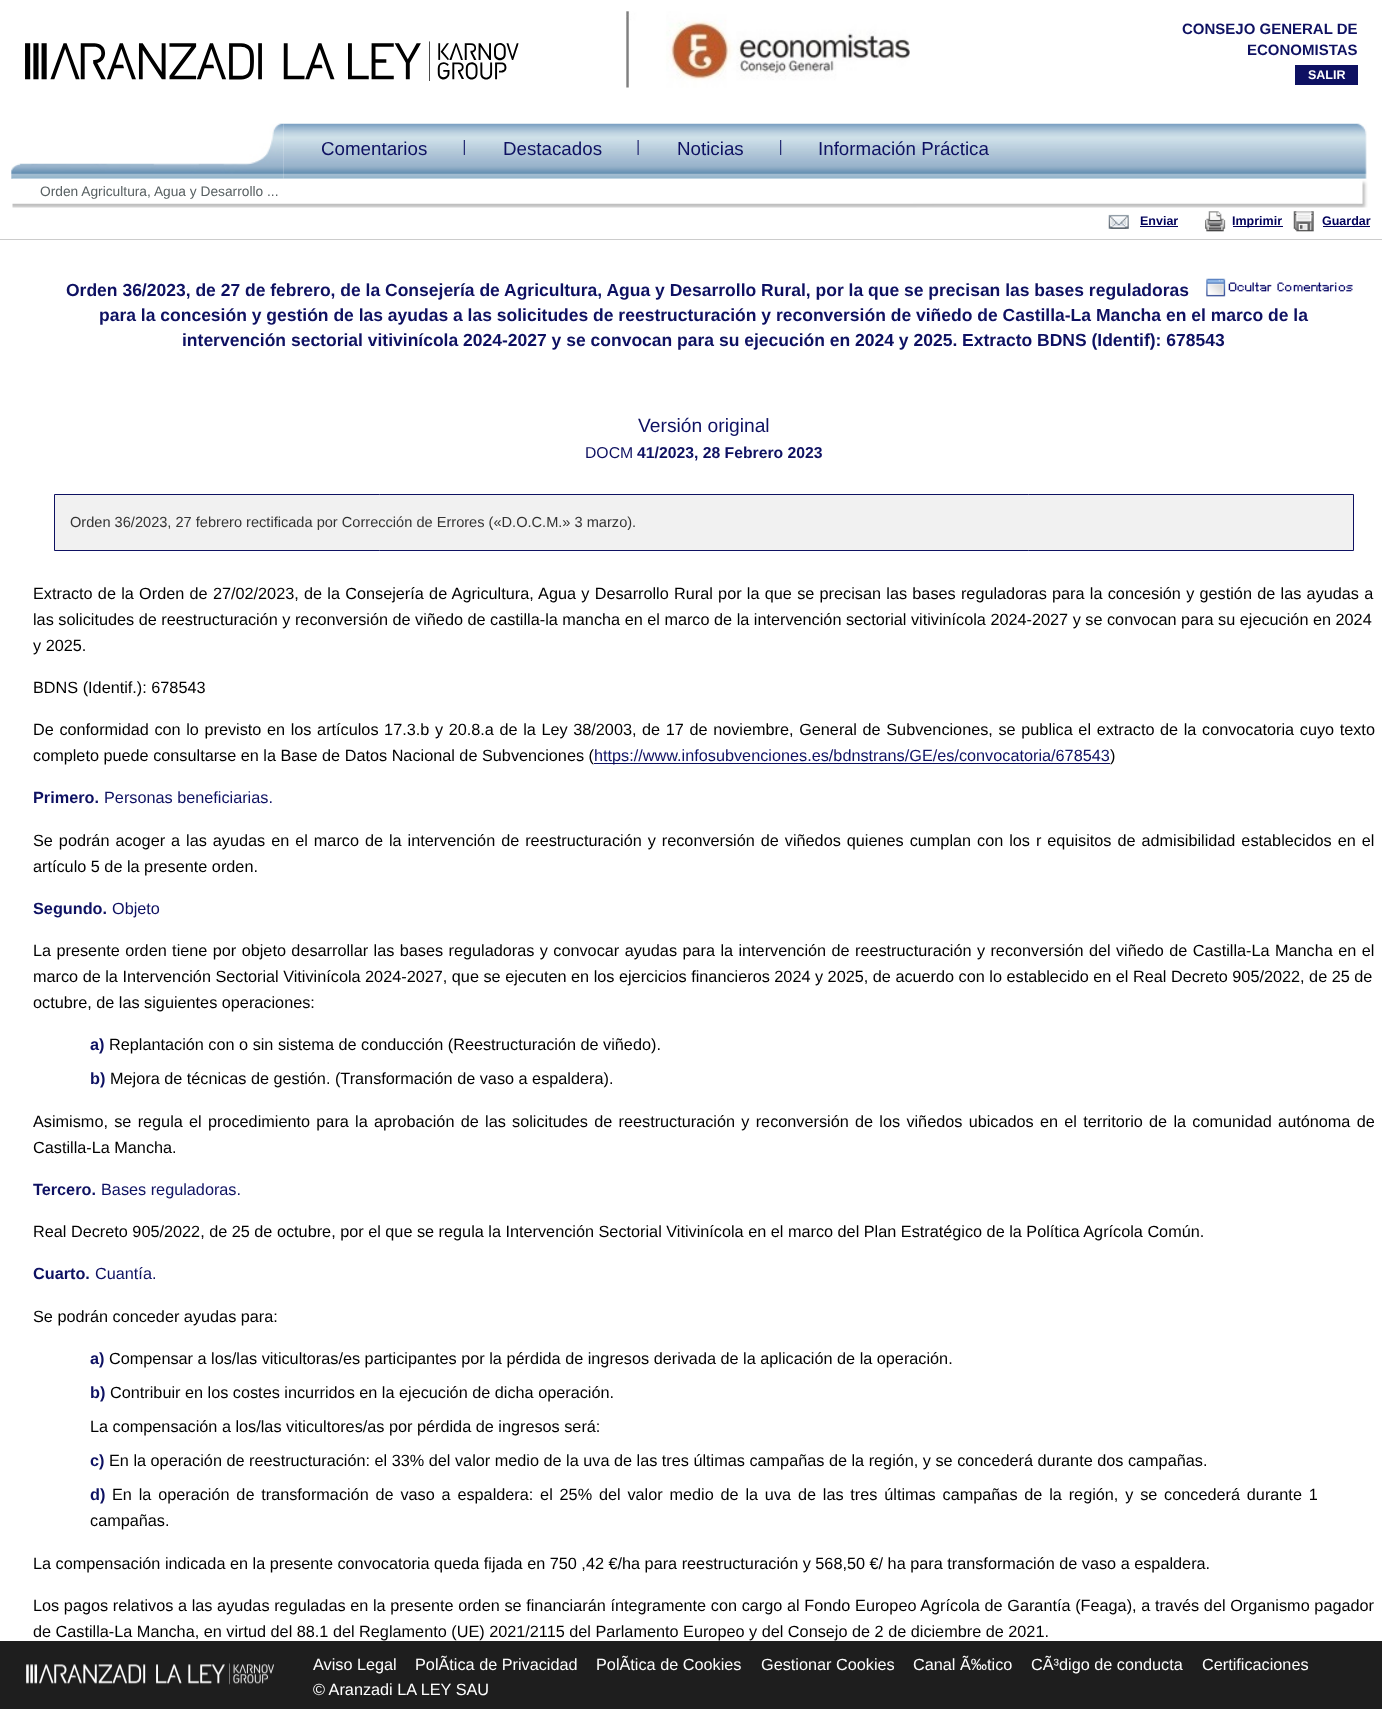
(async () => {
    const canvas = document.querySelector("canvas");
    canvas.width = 1382;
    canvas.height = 1709;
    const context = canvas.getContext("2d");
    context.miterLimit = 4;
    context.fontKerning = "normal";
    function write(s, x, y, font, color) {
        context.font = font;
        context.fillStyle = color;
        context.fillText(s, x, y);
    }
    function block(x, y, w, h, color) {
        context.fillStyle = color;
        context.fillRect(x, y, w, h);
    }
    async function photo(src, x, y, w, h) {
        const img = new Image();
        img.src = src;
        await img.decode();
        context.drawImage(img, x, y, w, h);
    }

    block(0, 0, 1382, 1709, "rgb(255, 255, 255)");
    block(0, 239, 1382, 1, "rgb(204, 204, 204)");
    await photo("media/1.png", 25, 41, 494, 40);
    await photo("media/2.png", 626, 11, 284, 77);
    write("CONSEJO GENERAL DE", 1182, 34, "bold 15px Liberation Sans", "rgb(14, 17, 98)");
    write("ECONOMISTAS", 1247, 55, "bold 15px Liberation Sans", "rgb(14, 17, 98)");
    block(1295, 65, 63, 20, "rgb(14, 17, 98)");
    write("SALIR", 1308, 79, "bold 12.5px Liberation Sans", "rgb(255, 255, 255)");
    await photo("media/3.png", 11, 123, 273, 56);
    await photo("media/4.png", 283, 123, 1084, 56);
    await photo("media/5.png", 463, 140, 2, 15);
    write("Comentarios", 321, 155, "18.75px Liberation Sans", "rgb(14, 17, 98)");
    await photo("media/6.png", 637, 140, 2, 15);
    write("Destacados", 503, 155, "18.75px Liberation Sans", "rgb(14, 17, 98)");
    await photo("media/7.png", 780, 140, 2, 15);
    write("Noticias", 677, 155, "18.75px Liberation Sans", "rgb(14, 17, 98)");
    write("Información Práctica", 818, 155, "18.75px Liberation Sans", "rgb(14, 17, 98)");
    await photo("media/8.png", 12, 178, 1356, 30);
    write("Orden Agricultura, Agua y Desarrollo ...", 40, 196, "13.75px Liberation Sans", "rgb(89, 97, 99)");
    await photo("media/9.png", 1108, 214, 21, 15);
    write("Enviar", 1140, 225, "bold 12.5px Liberation Sans", "rgb(0, 0, 90)");
    block(1140, 226, 38, 1, "rgb(0, 0, 90)");
    await photo("media/10.png", 1205, 211, 21, 21);
    block(1233, 226, 50, 1, "rgb(0, 0, 90)");
    write("Imprimir", 1232, 225, "bold 12.5px Liberation Sans", "rgb(0, 0, 90)");
    await photo("media/11.png", 1293, 211, 21, 21);
    write("Guardar", 1322, 225, "bold 12.5px Liberation Sans", "rgb(0, 0, 90)");
    block(1323, 226, 47, 1, "rgb(0, 0, 90)");
    await photo("media/12.png", 1206, 278, 147, 19);
    write("Orden 36/2023, de 27 de febrero, de la Consejería de Agricultura, Agua y Desarrollo Rural, por la que se precisan las bases reguladoras", 66, 296, "bold 17.5px Liberation Sans", "rgb(14, 17, 98)");
    write("para la concesión y gestión de las ayudas a las solicitudes de reestructuración y reconversión de viñedo de Castilla-La Mancha en el marco de la", 99, 321, "bold 17.5px Liberation Sans", "rgb(14, 17, 98)");
    write("intervención sectorial vitivinícola 2024-2027 y se convocan para su ejecución en 2024 y 2025. Extracto BDNS (Identif): 678543", 182, 346, "bold 17.5px Liberation Sans", "rgb(14, 17, 98)");
    write("Versión original", 638, 432, "19.25px Liberation Sans", "rgb(14, 17, 98)");
    write("DOCM", 585, 458, "15.75px Liberation Sans", "rgb(14, 17, 98)");
    write("41/2023, 28 Febrero 2023", 637, 458, "bold 15.75px Liberation Sans", "rgb(14, 17, 98)");
    context.fillStyle = "rgb(241, 241, 241)";
    context.beginPath();
    context.rect(54.5, 494.5, 1299, 56);
    context.fill();
    context.strokeStyle = "rgb(14, 17, 98)";
    context.stroke();
    write("Orden 36/2023, 27 febrero rectificada por Corrección de Errores («D.O.C.M.» 3 marzo).", 70, 527, "14.6px Liberation Sans", "rgb(51, 51, 51)");
    context.wordSpacing = "0.75px";
    write("Extracto de la Orden de 27/02/2023, de la Consejería de Agricultura, Agua y Desarrollo Rural por la que se precisan las bases reguladoras para la concesión y gestión de las ayudas a", 33, 599, "16.25px Liberation Sans", "rgb(0, 0, 0)");
    context.wordSpacing = "0px";
    write("las solicitudes de reestructuración y reconversión de viñedo de castilla-la mancha en el marco de la intervención sectorial vitivinícola 2024-2027 y se convocan para su ejecución en 2024", 33, 625, "16.25px Liberation Sans", "rgb(0, 0, 0)");
    write("y 2025.", 33, 651, "16.25px Liberation Sans", "rgb(0, 0, 0)");
    write("BDNS (Identif.): 678543", 33, 693, "16.25px Liberation Sans", "rgb(0, 0, 0)");
    context.wordSpacing = "1.1px";
    write("De conformidad con lo previsto en los artículos 17.3.b y 20.8.a de la Ley 38/2003, de 17 de noviembre, General de Subvenciones, se publica el extracto de la convocatoria cuyo texto", 33, 735, "16.25px Liberation Sans", "rgb(0, 0, 0)");
    context.wordSpacing = "0px";
    write("completo puede consultarse en la Base de Datos Nacional de Subvenciones (", 33, 761, "16.25px Liberation Sans", "rgb(0, 0, 0)");
    block(594, 763, 516, 1, "rgb(14, 17, 98)");
    write("https://www.infosubvenciones.es/bdnstrans/GE/es/convocatoria/678543", 594, 761, "16.25px Liberation Sans", "rgb(14, 17, 98)");
    write(")", 1110, 761, "16.25px Liberation Sans", "rgb(0, 0, 0)");
    write("Primero.", 33, 803, "bold 16.25px Liberation Sans", "rgb(14, 17, 98)");
    write("Personas beneficiarias.", 104, 803, "16.25px Liberation Sans", "rgb(14, 17, 98)");
    context.wordSpacing = "1.45px";
    write("Se podrán acoger a las ayudas en el marco de la intervención de reestructuración y reconversión de viñedos quienes cumplan con los r equisitos de admisibilidad establecidos en el", 33, 846, "16.25px Liberation Sans", "rgb(0, 0, 0)");
    context.wordSpacing = "0px";
    write("artículo 5 de la presente orden.", 33, 872, "16.25px Liberation Sans", "rgb(0, 0, 0)");
    write("Segundo.", 33, 914, "bold 16.25px Liberation Sans", "rgb(14, 17, 98)");
    write("Objeto", 112, 914, "16.25px Liberation Sans", "rgb(14, 17, 98)");
    context.wordSpacing = "0.9px";
    write("La presente orden tiene por objeto desarrollar las bases reguladoras y convocar ayudas para la intervención de reestructuración y reconversión del viñedo de Castilla-La Mancha en el", 33, 956, "16.25px Liberation Sans", "rgb(0, 0, 0)");
    context.wordSpacing = "0px";
    write("marco de la Intervención Sectorial Vitivinícola 2024-2027, que se ejecuten en los ejercicios financieros 2024 y 2025, de acuerdo con lo establecido en el Real Decreto 905/2022, de 25 de", 33, 982, "16.25px Liberation Sans", "rgb(0, 0, 0)");
    write("octubre, de las siguientes operaciones:", 33, 1008, "16.25px Liberation Sans", "rgb(0, 0, 0)");
    write("a)", 90, 1050, "bold 16.25px Liberation Sans", "rgb(14, 17, 98)");
    write("Replantación con o sin sistema de conducción (Reestructuración de viñedo).", 109, 1050, "16.25px Liberation Sans", "rgb(0, 0, 0)");
    write("b)", 90, 1084, "bold 16.25px Liberation Sans", "rgb(14, 17, 98)");
    write("Mejora de técnicas de gestión. (Transformación de vaso a espaldera).", 110, 1084, "16.25px Liberation Sans", "rgb(0, 0, 0)");
    context.wordSpacing = "1.75px";
    write("Asimismo, se regula el procedimiento para la aprobación de las solicitudes de reestructuración y reconversión de los viñedos ubicados en el territorio de la comunidad autónoma de", 33, 1127, "16.25px Liberation Sans", "rgb(0, 0, 0)");
    context.wordSpacing = "0px";
    write("Castilla-La Mancha.", 33, 1153, "16.25px Liberation Sans", "rgb(0, 0, 0)");
    write("Tercero.", 33, 1195, "bold 16.25px Liberation Sans", "rgb(14, 17, 98)");
    write("Bases reguladoras.", 101, 1195, "16.25px Liberation Sans", "rgb(14, 17, 98)");
    write("Real Decreto 905/2022, de 25 de octubre, por el que se regula la Intervención Sectorial Vitivinícola en el marco del Plan Estratégico de la Política Agrícola Común.", 33, 1237, "16.25px Liberation Sans", "rgb(0, 0, 0)");
    write("Cuarto.", 33, 1279, "bold 16.25px Liberation Sans", "rgb(14, 17, 98)");
    write("Cuantía.", 95, 1279, "16.25px Liberation Sans", "rgb(14, 17, 98)");
    write("Se podrán conceder ayudas para:", 33, 1322, "16.25px Liberation Sans", "rgb(0, 0, 0)");
    write("a)", 90, 1364, "bold 16.25px Liberation Sans", "rgb(14, 17, 98)");
    write("Compensar a los/las viticultoras/es participantes por la pérdida de ingresos derivada de la aplicación de la operación.", 109, 1364, "16.25px Liberation Sans", "rgb(0, 0, 0)");
    write("b)", 90, 1398, "bold 16.25px Liberation Sans", "rgb(14, 17, 98)");
    write("Contribuir en los costes incurridos en la ejecución de dicha operación.", 110, 1398, "16.25px Liberation Sans", "rgb(0, 0, 0)");
    write("La compensación a los/las viticultores/as por pérdida de ingresos será:", 90, 1432, "16.25px Liberation Sans", "rgb(0, 0, 0)");
    write("c)", 90, 1466, "bold 16.25px Liberation Sans", "rgb(14, 17, 98)");
    write("En la operación de reestructuración: el 33% del valor medio de la uva de las tres últimas campañas de la región, y se concederá durante dos campañas.", 109, 1466, "16.25px Liberation Sans", "rgb(0, 0, 0)");
    write("d)", 90, 1500, "bold 16.25px Liberation Sans", "rgb(14, 17, 98)");
    context.wordSpacing = "2.3px";
    write("En la operación de transformación de vaso a espaldera: el 25% del valor medio de la uva de las tres últimas campañas de la región, y se concederá durante 1", 112, 1500, "16.25px Liberation Sans", "rgb(0, 0, 0)");
    context.wordSpacing = "0px";
    write("campañas.", 90, 1526, "16.25px Liberation Sans", "rgb(0, 0, 0)");
    write("La compensación indicada en la presente convocatoria queda fijada en 750 ,42 €/ha para reestructuración y 568,50 €/ ha para transformación de vaso a espaldera.", 33, 1569, "16.25px Liberation Sans", "rgb(0, 0, 0)");
    context.wordSpacing = "0.15px";
    write("Los pagos relativos a las ayudas reguladas en la presente orden se financiarán íntegramente con cargo al Fondo Europeo Agrícola de Garantía (Feaga), a través del Organismo pagador", 33, 1611, "16.25px Liberation Sans", "rgb(0, 0, 0)");
    context.wordSpacing = "0px";
    write("de Castilla-La Mancha, en virtud del 88.1 del Reglamento (UE) 2021/2115 del Parlamento Europeo y del Consejo de 2 de diciembre de 2021.", 33, 1637, "16.25px Liberation Sans", "rgb(0, 0, 0)");
    block(0, 1641, 1382, 68, "rgb(30, 30, 30)");
    await photo("media/13.png", 26, 1663, 248, 22);
    write("Aviso Legal", 313, 1670, "16.25px Liberation Sans", "rgb(255, 255, 255)");
    write("PolÃtica de Privacidad", 415, 1670, "16.25px Liberation Sans", "rgb(255, 255, 255)");
    write("PolÃtica de Cookies", 596, 1670, "16.25px Liberation Sans", "rgb(255, 255, 255)");
    write("Gestionar Cookies", 761, 1670, "16.25px Liberation Sans", "rgb(255, 255, 255)");
    write("Canal Ã‰tico", 913, 1670, "16.25px Liberation Sans", "rgb(255, 255, 255)");
    write("CÃ³digo de conducta", 1031, 1670, "16.25px Liberation Sans", "rgb(255, 255, 255)");
    write("Certificaciones", 1202, 1670, "16.25px Liberation Sans", "rgb(255, 255, 255)");
    write("© Aranzadi LA LEY SAU", 313, 1695, "16.25px Liberation Sans", "rgb(255, 255, 255)");
})();
